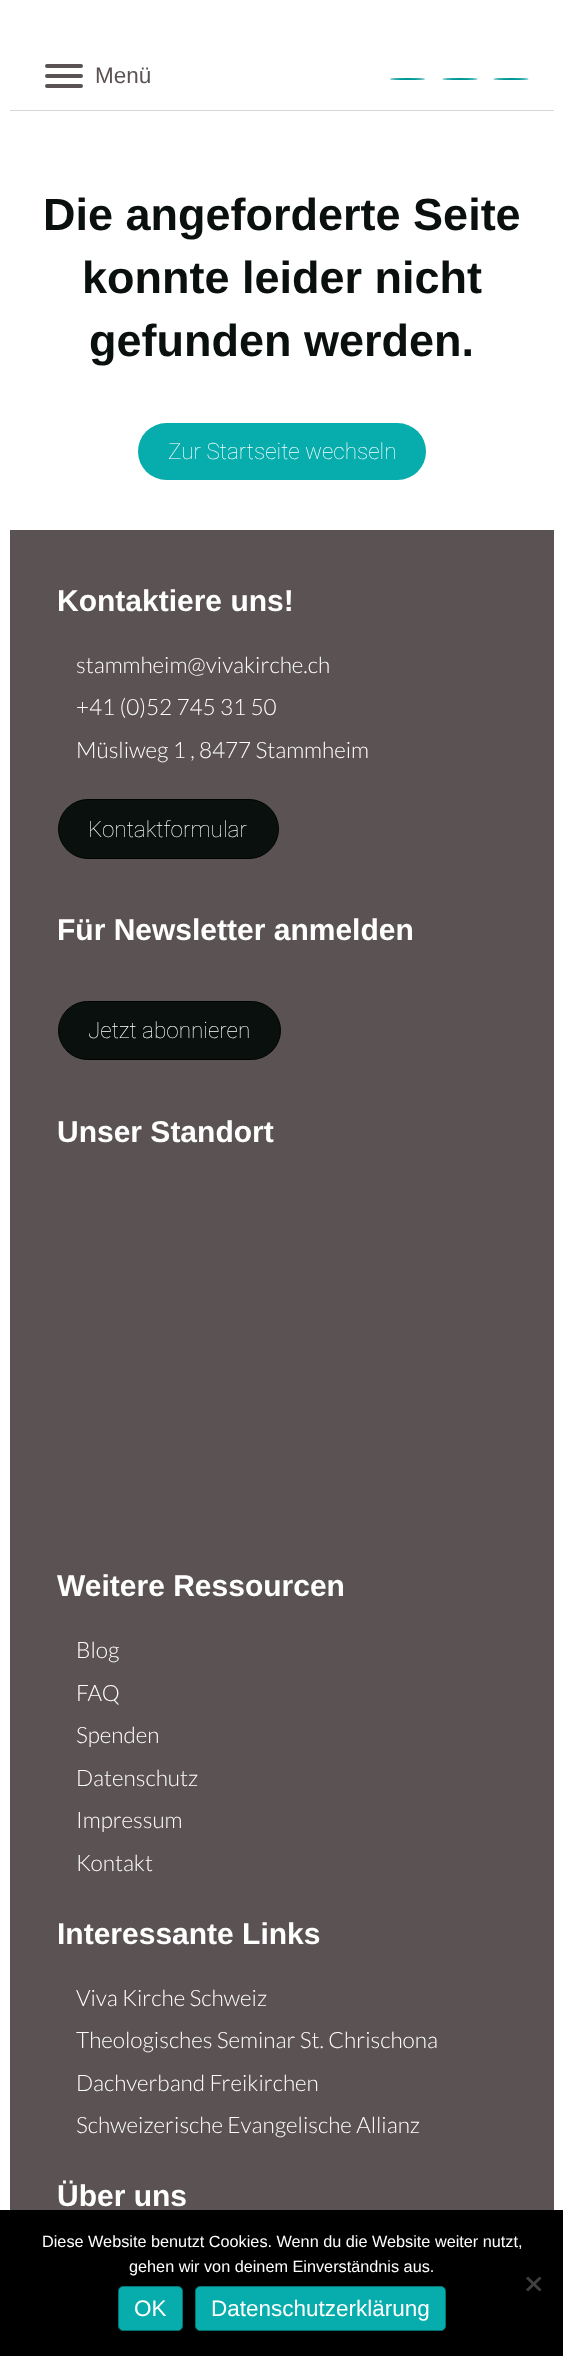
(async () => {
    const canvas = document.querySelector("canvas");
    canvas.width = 563;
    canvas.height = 2356;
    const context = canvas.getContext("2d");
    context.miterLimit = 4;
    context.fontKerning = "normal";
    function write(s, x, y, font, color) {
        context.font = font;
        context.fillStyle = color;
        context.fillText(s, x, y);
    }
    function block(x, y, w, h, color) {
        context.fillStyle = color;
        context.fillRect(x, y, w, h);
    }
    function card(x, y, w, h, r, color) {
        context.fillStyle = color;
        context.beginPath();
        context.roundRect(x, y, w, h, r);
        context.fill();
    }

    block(0, 0, 563, 2356, "rgb(255, 255, 255)");
    block(10, 110, 544, 1, "rgba(91, 83, 83, 0.24)");
    card(45, 74, 38, 4, 2, "rgb(91, 83, 83)");
    card(45, 64, 38, 4, 2, "rgb(91, 83, 83)");
    card(45, 84, 38, 4, 2, "rgb(91, 83, 83)");
    write("Menü", 95, 83, "22.5px Liberation Sans", "rgb(91, 83, 83)");
    context.fillStyle = "rgb(0, 153, 152)";
    context.beginPath();
    context.ellipse(407.5, 79, 17.5, 1, 0, 0, Math.PI * 2);
    context.fill();
    context.beginPath();
    context.ellipse(460, 79, 17.5, 1, 0, 0, Math.PI * 2);
    context.fill();
    context.beginPath();
    context.ellipse(511, 79, 17.5, 1, 0, 0, Math.PI * 2);
    context.fill();
    write("Die angeforderte Seite", 43, 230, "bold 45px Liberation Sans", "rgb(10, 16, 13)");
    write("konnte leider nicht", 82, 293, "bold 45px Liberation Sans", "rgb(10, 16, 13)");
    write("gefunden werden.", 89, 356, "bold 45px Liberation Sans", "rgb(10, 16, 13)");
    card(138, 423, 288, 57, 28.5, "rgb(7, 173, 172)");
    write("Zur Startseite wechseln", 168, 459, "100 22.5px Roboto", "rgb(255, 255, 255)");
    block(10, 530, 544, 1680, "rgb(91, 83, 83)");
    write("Kontaktiere uns!", 57, 611, "bold 30px Liberation Sans", "rgb(255, 255, 255)");
    write("stammheim@vivakirche.ch", 76, 673, "300 22.5px Lato", "rgb(255, 255, 255)");
    write("+41 (0)52 745 31 50", 76, 715, "300 22.5px Lato", "rgb(255, 255, 255)");
    write("Müsliweg 1 , 8477 Stammheim", 76, 758, "300 22.5px Lato", "rgb(255, 255, 255)");
    context.fillStyle = "rgb(10, 16, 13)";
    context.beginPath();
    context.roundRect(58.5, 799.5, 220, 59, 29.5);
    context.fill();
    context.strokeStyle = "rgb(0, 4, 1)";
    context.stroke();
    write("Kontaktformular", 88, 837, "100 22.5px Roboto", "rgb(255, 255, 255)");
    write("Für Newsletter anmelden", 57, 940, "bold 30px Liberation Sans", "rgb(255, 255, 255)");
    context.fillStyle = "rgb(10, 16, 13)";
    context.beginPath();
    context.roundRect(58.5, 1001.5, 222, 58, 29);
    context.fill();
    context.stroke();
    write("Jetzt abonnieren", 88, 1038, "100 22.5px Roboto", "rgb(255, 255, 255)");
    write("Unser Standort", 57, 1142, "bold 30px Liberation Sans", "rgb(255, 255, 255)");
    write("Weitere Ressourcen", 57, 1596, "bold 30px Liberation Sans", "rgb(255, 255, 255)");
    write("Blog", 76, 1658, "300 22.5px Lato", "rgb(255, 255, 255)");
    write("FAQ", 76, 1701, "300 22.5px Lato", "rgb(255, 255, 255)");
    write("Spenden", 76, 1743, "300 22.5px Lato", "rgb(255, 255, 255)");
    write("Datenschutz", 76, 1786, "300 22.5px Lato", "rgb(255, 255, 255)");
    write("Impressum", 76, 1828, "300 22.5px Lato", "rgb(255, 255, 255)");
    write("Kontakt", 76, 1871, "300 22.5px Lato", "rgb(255, 255, 255)");
    write("Interessante Links", 57, 1944, "bold 30px Liberation Sans", "rgb(255, 255, 255)");
    write("Viva Kirche Schweiz", 76, 2006, "300 22.5px Lato", "rgb(255, 255, 255)");
    write("Theologisches Seminar St. Chrischona", 76, 2048, "300 22.5px Lato", "rgb(255, 255, 255)");
    write("Dachverband Freikirchen", 76, 2091, "300 22.5px Lato", "rgb(255, 255, 255)");
    write("Schweizerische Evangelische Allianz", 76, 2133, "300 22.5px Lato", "rgb(255, 255, 255)");
    write("Über uns", 57, 2206, "bold 30px Liberation Sans", "rgb(255, 255, 255)");
    block(0, 2210, 563, 146, "rgb(0, 0, 0)");
    write("Diese Website benutzt Cookies. Wenn du die Website weiter nutzt,", 42, 2247, "16.25px Liberation Sans", "rgb(255, 255, 255)");
    write("gehen wir von deinem Einverständnis aus.", 129, 2272, "16.25px Liberation Sans", "rgb(255, 255, 255)");
    context.fillStyle = "rgb(64, 64, 64)";
    context.beginPath();
    context.moveTo(539.5, 2276.5);
    context.lineTo(541.5, 2278.5);
    context.lineTo(528, 2291.5);
    context.lineTo(526, 2289.5);
    context.closePath();
    context.fill();
    context.beginPath();
    context.moveTo(526, 2278.5);
    context.lineTo(528, 2276.5);
    context.lineTo(541.5, 2289.5);
    context.lineTo(539.5, 2291.5);
    context.closePath();
    context.fill();
    context.fillStyle = "rgb(7, 173, 172)";
    context.beginPath();
    context.roundRect(118.5, 2286.5, 64, 44, 4.5);
    context.fill();
    context.strokeStyle = "rgb(5, 114, 114)";
    context.stroke();
    write("OK", 134, 2316, "22.5px Liberation Sans", "rgb(255, 255, 255)");
    context.fillStyle = "rgb(7, 173, 172)";
    context.beginPath();
    context.roundRect(195.5, 2286.5, 250, 44, 4.5);
    context.fill();
    context.stroke();
    write("Datenschutzerklärung", 211, 2316, "22.5px Liberation Sans", "rgb(255, 255, 255)");
})();
